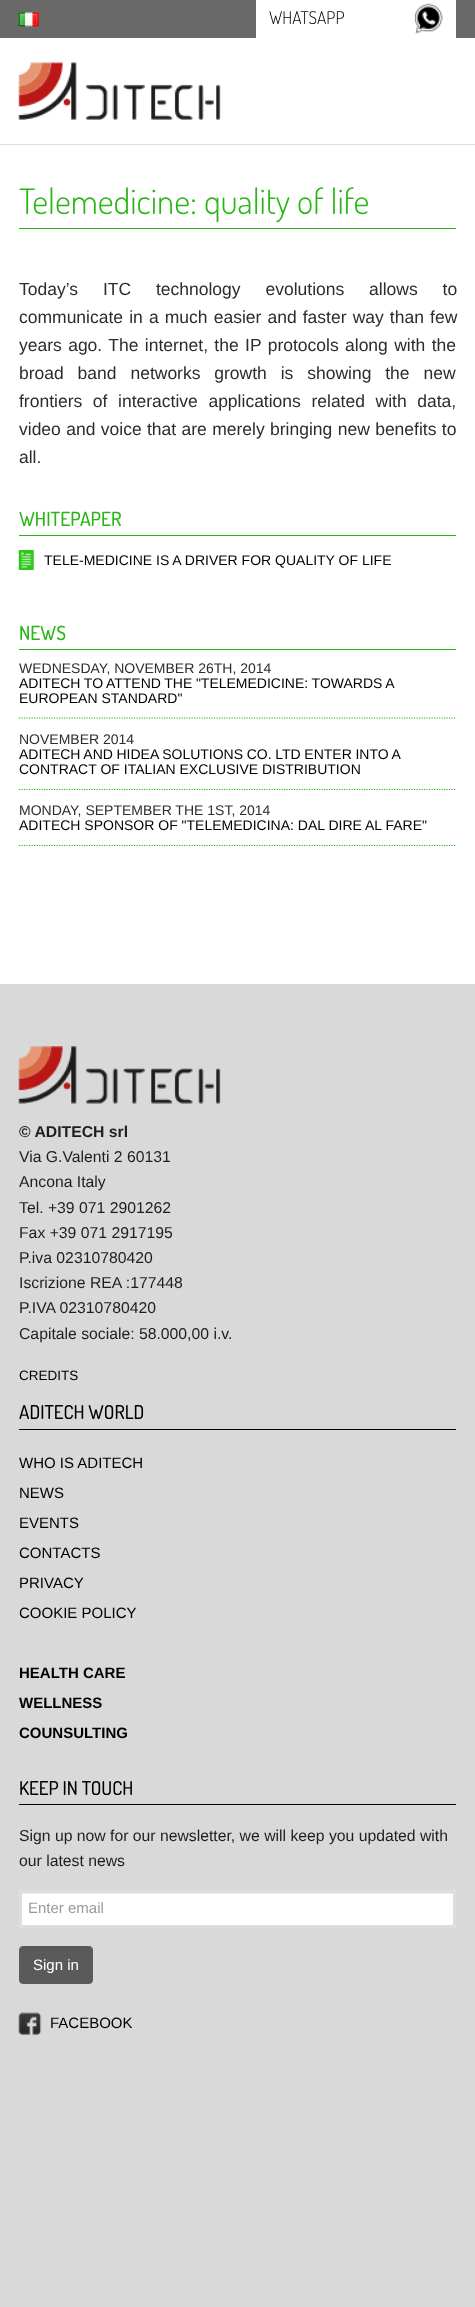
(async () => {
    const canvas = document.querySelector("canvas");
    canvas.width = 475;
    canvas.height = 2307;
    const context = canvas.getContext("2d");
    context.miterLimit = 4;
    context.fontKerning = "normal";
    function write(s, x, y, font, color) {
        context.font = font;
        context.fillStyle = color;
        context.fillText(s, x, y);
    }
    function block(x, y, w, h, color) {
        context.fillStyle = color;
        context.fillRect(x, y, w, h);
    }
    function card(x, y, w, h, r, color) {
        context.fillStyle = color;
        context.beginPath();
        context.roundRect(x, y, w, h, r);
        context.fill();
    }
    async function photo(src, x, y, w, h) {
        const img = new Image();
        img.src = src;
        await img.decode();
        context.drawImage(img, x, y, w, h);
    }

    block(0, 0, 475, 2307, "rgb(217, 217, 217)");
    block(0, 38, 475, 106, "rgb(255, 255, 255)");
    block(0, 0, 475, 38, "rgb(105, 105, 105)");
    await photo("media/1.png", 18, 12, 21, 15);
    block(256, 0, 200, 38, "rgb(255, 255, 255)");
    await photo("media/2.png", 414, 3, 29, 31);
    write("WHATSAPP", 269, 24, "300 17.5px Dosis", "rgb(0, 0, 0)");
    await photo("media/3.png", 18, 62, 203, 58);
    block(0, 145, 475, 839, "rgb(255, 255, 255)");
    block(0, 144, 475, 1, "rgb(221, 221, 221)");
    block(19, 228, 437, 1, "rgb(39, 182, 20)");
    write("Telemedicine: quality of life", 19, 214, "300 35px Dosis", "rgb(39, 182, 20)");
    context.wordSpacing = "20px";
    write("Today’s ITC technology evolutions allows to", 19, 295, "17.5px Liberation Sans", "rgb(44, 44, 44)");
    context.wordSpacing = "1.25px";
    write("communicate in a much easier and faster way than few", 19, 323, "17.5px Liberation Sans", "rgb(44, 44, 44)");
    context.wordSpacing = "1.5px";
    write("years ago. The internet, the IP protocols along with the", 19, 351, "17.5px Liberation Sans", "rgb(44, 44, 44)");
    context.wordSpacing = "9px";
    write("broad band networks growth is showing the new", 19, 379, "17.5px Liberation Sans", "rgb(44, 44, 44)");
    context.wordSpacing = "5.75px";
    write("frontiers of interactive applications related with data,", 19, 407, "17.5px Liberation Sans", "rgb(44, 44, 44)");
    context.wordSpacing = "0.5px";
    write("video and voice that are merely bringing new benefits to", 19, 435, "17.5px Liberation Sans", "rgb(44, 44, 44)");
    context.wordSpacing = "0px";
    write("all.", 19, 463, "17.5px Liberation Sans", "rgb(44, 44, 44)");
    block(19, 535, 437, 1, "rgb(39, 182, 20)");
    write("WHITEPAPER", 19, 526, "500 19.5px Dosis", "rgb(39, 182, 20)");
    await photo("media/4.png", 18, 550, 16, 20);
    write("TELE-MEDICINE IS A DRIVER FOR QUALITY OF LIFE", 44, 565, "14px Liberation Sans", "rgb(0, 0, 0)");
    block(19, 649, 437, 1, "rgb(39, 182, 20)");
    write("NEWS", 19, 640, "500 19.5px Dosis", "rgb(39, 182, 20)");
    context.beginPath();
    context.moveTo(19, 718);
    context.lineTo(456, 718);
    context.strokeStyle = "rgb(39, 182, 20)";
    context.lineWidth = 1.2;
    context.setLineDash([1.25, 1.25]);
    context.stroke();
    write("WEDNESDAY, NOVEMBER 26TH, 2014", 19, 673, "14px Liberation Sans", "rgb(44, 44, 44)");
    context.wordSpacing = "-0.25px";
    write("ADITECH TO ATTEND THE \"TELEMEDICINE: TOWARDS A", 19, 688, "14px Liberation Sans", "rgb(0, 0, 0)");
    context.wordSpacing = "0px";
    write("EUROPEAN STANDARD\"", 19, 703, "14px Liberation Sans", "rgb(0, 0, 0)");
    context.beginPath();
    context.moveTo(19, 789.5);
    context.lineTo(456, 789.5);
    context.stroke();
    write("NOVEMBER 2014", 19, 744, "14px Liberation Sans", "rgb(44, 44, 44)");
    context.wordSpacing = "-0.25px";
    write("ADITECH AND HIDEA SOLUTIONS CO. LTD ENTER INTO A", 19, 759, "14px Liberation Sans", "rgb(0, 0, 0)");
    context.wordSpacing = "0px";
    write("CONTRACT OF ITALIAN EXCLUSIVE DISTRIBUTION", 19, 774, "14px Liberation Sans", "rgb(0, 0, 0)");
    context.beginPath();
    context.moveTo(19, 845.5);
    context.lineTo(456, 845.5);
    context.stroke();
    write("MONDAY, SEPTEMBER THE 1ST, 2014", 19, 815, "14px Liberation Sans", "rgb(44, 44, 44)");
    write("ADITECH SPONSOR OF \"TELEMEDICINA: DAL DIRE AL FARE\"", 19, 830, "14px Liberation Sans", "rgb(0, 0, 0)");
    await photo("media/5.png", 18, 1046, 203, 58);
    write("© ADITECH srl", 19, 1137, "bold 15.75px Liberation Sans", "rgb(30, 30, 30)");
    write("Via G.Valenti 2 60131", 19, 1162, "15.75px Liberation Sans", "rgb(30, 30, 30)");
    write("Ancona Italy", 19, 1187, "15.75px Liberation Sans", "rgb(30, 30, 30)");
    write("Tel. +39 071 2901262", 19, 1213, "15.75px Liberation Sans", "rgb(30, 30, 30)");
    write("Fax +39 071 2917195", 19, 1238, "15.75px Liberation Sans", "rgb(30, 30, 30)");
    write("P.iva 02310780420", 19, 1263, "15.75px Liberation Sans", "rgb(30, 30, 30)");
    write("Iscrizione REA :177448", 19, 1288, "15.75px Liberation Sans", "rgb(30, 30, 30)");
    write("P.IVA 02310780420", 19, 1313, "15.75px Liberation Sans", "rgb(30, 30, 30)");
    write("Capitale sociale: 58.000,00 i.v.", 19, 1339, "15.75px Liberation Sans", "rgb(30, 30, 30)");
    write("CREDITS", 19, 1380, "13.5px Liberation Sans", "rgb(0, 0, 0)");
    block(19, 1429, 437, 1, "rgb(0, 0, 0)");
    write("ADITECH WORLD", 19, 1419, "500 19px Dosis", "rgb(0, 0, 0)");
    write("WHO IS ADITECH", 19, 1468, "15px Liberation Sans", "rgb(0, 0, 0)");
    write("NEWS", 19, 1498, "15px Liberation Sans", "rgb(0, 0, 0)");
    write("EVENTS", 19, 1528, "15px Liberation Sans", "rgb(0, 0, 0)");
    write("CONTACTS", 19, 1558, "15px Liberation Sans", "rgb(0, 0, 0)");
    write("PRIVACY", 19, 1588, "15px Liberation Sans", "rgb(0, 0, 0)");
    write("COOKIE POLICY", 19, 1618, "15px Liberation Sans", "rgb(0, 0, 0)");
    write("HEALTH CARE", 19, 1678, "bold 15px Liberation Sans", "rgb(0, 0, 0)");
    write("WELLNESS", 19, 1708, "bold 15px Liberation Sans", "rgb(0, 0, 0)");
    write("COUNSULTING", 19, 1738, "bold 15px Liberation Sans", "rgb(0, 0, 0)");
    block(19, 1804, 437, 1, "rgb(0, 0, 0)");
    write("KEEP IN TOUCH", 19, 1795, "500 19px Dosis", "rgb(0, 0, 0)");
    write("Sign up now for our newsletter, we will keep you updated with", 19, 1841, "15.75px Liberation Sans", "rgb(30, 30, 30)");
    write("our latest news", 19, 1866, "15.75px Liberation Sans", "rgb(30, 30, 30)");
    card(19, 1890, 437, 38, 4, "rgb(255, 255, 255)");
    context.fillStyle = "rgb(236, 236, 236)";
    context.beginPath();
    context.moveTo(22, 1894);
    context.lineTo(452, 1894);
    context.bezierCurveTo(453, 1894, 454, 1894, 454, 1895);
    context.bezierCurveTo(454, 1894, 454, 1893, 453, 1893);
    context.lineTo(22, 1893);
    context.lineTo(21, 1894);
    context.lineTo(21, 1895);
    context.closePath();
    context.fill();
    context.beginPath();
    context.roundRect(20.5, 1891.5, 434, 35, 2.5);
    context.strokeStyle = "rgb(221, 221, 221)";
    context.lineWidth = 3;
    context.setLineDash([]);
    context.stroke();
    write("Enter email", 28, 1913, "15px Liberation Sans", "rgb(153, 153, 153)");
    context.fillStyle = "rgb(90, 90, 90)";
    context.beginPath();
    context.roundRect(19.5, 1946.5, 73, 37, 3.5);
    context.fill();
    context.strokeStyle = "rgb(90, 90, 90)";
    context.lineWidth = 1;
    context.stroke();
    write("Sign in", 33, 1970, "15px Liberation Sans", "rgb(255, 255, 255)");
    await photo("media/6.png", 18, 2012, 24, 23);
    write("FACEBOOK", 50, 2028, "15px Liberation Sans", "rgb(0, 0, 0)");
})();
